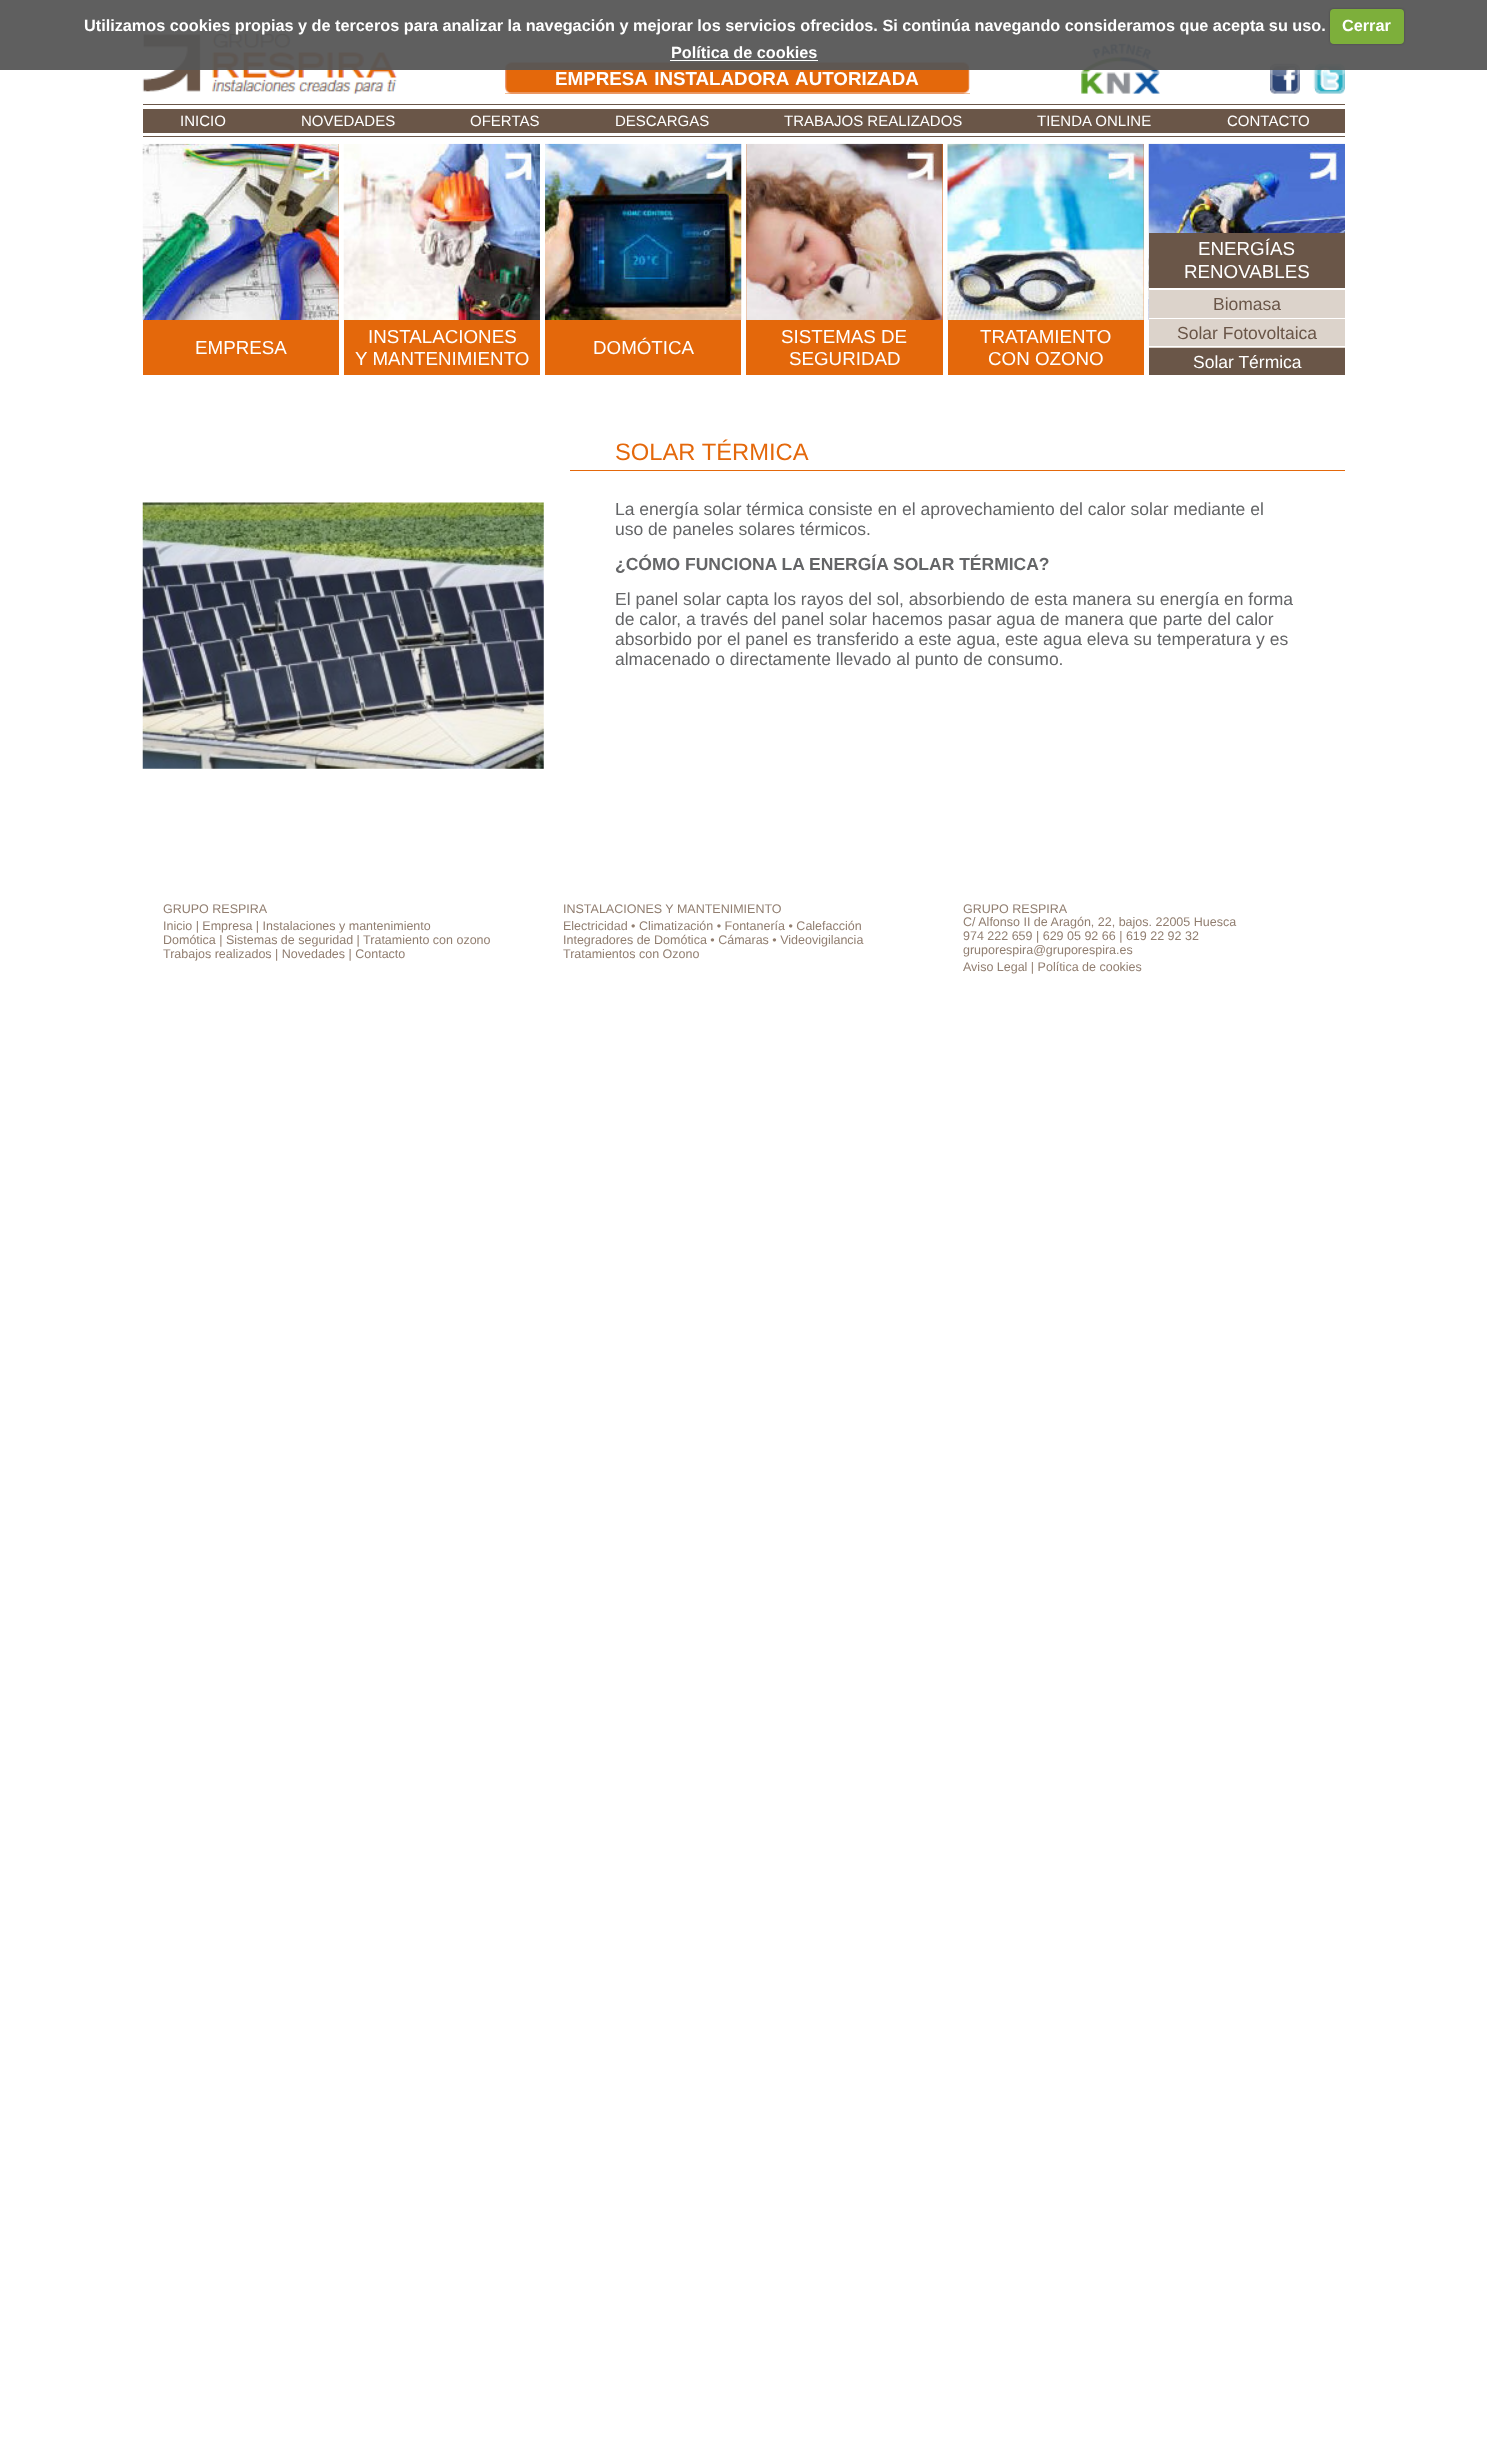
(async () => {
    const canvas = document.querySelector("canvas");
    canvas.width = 1487;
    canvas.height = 2439;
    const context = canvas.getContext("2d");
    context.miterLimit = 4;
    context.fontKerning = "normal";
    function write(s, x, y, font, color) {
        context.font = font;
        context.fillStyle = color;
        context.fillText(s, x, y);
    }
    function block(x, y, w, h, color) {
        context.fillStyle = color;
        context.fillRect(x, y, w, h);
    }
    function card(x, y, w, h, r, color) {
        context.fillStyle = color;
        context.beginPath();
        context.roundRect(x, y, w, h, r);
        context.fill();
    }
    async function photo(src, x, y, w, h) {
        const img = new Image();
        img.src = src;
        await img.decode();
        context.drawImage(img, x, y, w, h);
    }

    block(0, 0, 1487, 2439, "rgb(255, 255, 255)");
    await photo("media/1.png", 142, 33, 255, 61);
    block(505, 93, 465, 1, "rgb(228, 104, 11)");
    await photo("media/2.png", 505, 62, 465, 32);
    await photo("media/3.png", 1081, 43, 79, 51);
    await photo("media/4.png", 1270, 63, 30, 31);
    await photo("media/5.png", 1313, 63, 32, 31);
    block(0, 0, 1487, 70, "rgba(86, 86, 86, 0.95)");
    write("Utilizamos cookies propias y de terceros para analizar la navegación y mejorar los servicios ofrecidos. Si continúa navegando consideramos que acepta su uso.", 84, 31, "bold 16.25px Liberation Sans", "rgb(255, 255, 255)");
    context.fillStyle = "rgba(0, 0, 0, 0.25)";
    context.filter = "blur(1px)";
    context.beginPath();
    context.roundRect(1330, 9, 74, 35, 4);
    context.fill();
    context.filter = "none";
    card(1330, 9, 74, 35, 4, "rgb(125, 175, 59)");
    write("Cerrar", 1342, 31, "bold 16.25px Liberation Sans", "rgb(255, 255, 255)");
    write("Política de cookies", 671, 58, "bold 16.25px Liberation Sans", "rgb(255, 255, 255)");
    block(670, 60, 148, 1, "rgb(255, 255, 255)");
    context.wordSpacing = "2px";
    write("EMPRESA INSTALADORA AUTORIZADA", 555, 85, "bold 18.75px Liberation Sans", "rgb(255, 255, 255)");
    block(143, 104, 1202, 1, "rgb(106, 86, 72)");
    block(143, 136, 1202, 1, "rgb(106, 86, 72)");
    block(143, 109, 1202, 24, "rgb(106, 86, 72)");
    context.wordSpacing = "0px";
    write("INICIO", 180, 126, "15px Liberation Sans", "rgb(255, 255, 255)");
    write("NOVEDADES", 301, 126, "15px Liberation Sans", "rgb(255, 255, 255)");
    write("OFERTAS", 470, 126, "15px Liberation Sans", "rgb(255, 255, 255)");
    write("DESCARGAS", 615, 126, "15px Liberation Sans", "rgb(255, 255, 255)");
    write("TRABAJOS REALIZADOS", 784, 126, "15px Liberation Sans", "rgb(255, 255, 255)");
    write("TIENDA ONLINE", 1037, 126, "15px Liberation Sans", "rgb(255, 255, 255)");
    write("CONTACTO", 1227, 126, "15px Liberation Sans", "rgb(255, 255, 255)");
    block(143, 144, 196, 231, "rgb(228, 104, 11)");
    await photo("media/6.png", 142, 143, 197, 177);
    write("EMPRESA", 195, 354, "18.75px Liberation Sans", "rgb(255, 255, 255)");
    block(344, 320, 196, 55, "rgb(228, 104, 11)");
    await photo("media/7.png", 343, 143, 197, 177);
    write("INSTALACIONES", 368, 343, "18.75px Liberation Sans", "rgb(255, 255, 255)");
    write("Y MANTENIMIENTO", 355, 365, "18.75px Liberation Sans", "rgb(255, 255, 255)");
    block(545, 320, 196, 55, "rgb(228, 104, 11)");
    await photo("media/8.png", 545, 143, 197, 177);
    write("DOMÓTICA", 593, 354, "18.75px Liberation Sans", "rgb(255, 255, 255)");
    block(746, 144, 197, 231, "rgb(228, 104, 11)");
    await photo("media/9.png", 746, 143, 197, 177);
    write("SISTEMAS DE", 781, 343, "18.75px Liberation Sans", "rgb(255, 255, 255)");
    write("SEGURIDAD", 789, 365, "18.75px Liberation Sans", "rgb(255, 255, 255)");
    block(948, 144, 196, 231, "rgb(228, 104, 11)");
    await photo("media/10.png", 947, 143, 197, 177);
    write("TRATAMIENTO", 980, 343, "18.75px Liberation Sans", "rgb(255, 255, 255)");
    write("CON OZONO", 988, 365, "18.75px Liberation Sans", "rgb(255, 255, 255)");
    await photo("media/11.png", 1148, 143, 197, 177);
    block(1149, 233, 196, 55, "rgb(106, 86, 72)");
    block(1149, 288, 196, 2, "rgb(255, 255, 255)");
    write("ENERGÍAS", 1198, 255, "18.75px Liberation Sans", "rgb(255, 255, 255)");
    write("RENOVABLES", 1184, 278, "18.75px Liberation Sans", "rgb(255, 255, 255)");
    block(1149, 290, 196, 28, "rgb(220, 211, 203)");
    block(1149, 318, 196, 1, "rgb(255, 255, 255)");
    write("Biomasa", 1213, 310, "17.5px Liberation Sans", "rgb(106, 86, 72)");
    block(1149, 319, 196, 29, "rgb(220, 211, 203)");
    block(1149, 346, 196, 1, "rgb(255, 255, 255)");
    write("Solar Fotovoltaica", 1177, 339, "17.5px Liberation Sans", "rgb(106, 86, 72)");
    block(1149, 348, 196, 27, "rgb(106, 86, 72)");
    write("Solar Térmica", 1193, 368, "17.5px Liberation Sans", "rgb(255, 255, 255)");
    await photo("media/12.png", 142, 502, 402, 267);
    block(570, 470, 775, 1, "rgb(228, 104, 11)");
    write("SOLAR TÉRMICA", 615, 460, "23.75px Liberation Sans", "rgb(228, 104, 11)");
    write("La energía solar térmica consiste en el aprovechamiento del calor solar mediante el", 615, 515, "17.5px Liberation Sans", "rgb(100, 101, 103)");
    write("uso de paneles solares térmicos.", 615, 535, "17.5px Liberation Sans", "rgb(100, 101, 103)");
    write("¿CÓMO FUNCIONA LA ENERGÍA SOLAR TÉRMICA?", 615, 570, "bold 17.5px Liberation Sans", "rgb(100, 101, 103)");
    write("El panel solar capta los rayos del sol, absorbiendo de esta manera su energía en forma", 615, 605, "17.5px Liberation Sans", "rgb(100, 101, 103)");
    write("de calor, a través del panel solar hacemos pasar agua de manera que parte del calor", 615, 625, "17.5px Liberation Sans", "rgb(100, 101, 103)");
    write("absorbido por el panel es transferido a este agua, este agua eleva su temperatura y es", 615, 645, "17.5px Liberation Sans", "rgb(100, 101, 103)");
    write("almacenado o directamente llevado al punto de consumo.", 615, 665, "17.5px Liberation Sans", "rgb(100, 101, 103)");
    write("GRUPO RESPIRA", 163, 913, "12.5px Liberation Sans", "rgb(145, 126, 112)");
    write("Inicio | Empresa | Instalaciones y mantenimiento", 163, 930, "12.5px Liberation Sans", "rgb(145, 126, 112)");
    write("Domótica | Sistemas de seguridad | Tratamiento con ozono", 163, 944, "12.5px Liberation Sans", "rgb(145, 126, 112)");
    write("Trabajos realizados | Novedades | Contacto", 163, 958, "12.5px Liberation Sans", "rgb(145, 126, 112)");
    write("INSTALACIONES Y MANTENIMIENTO", 563, 913, "12.5px Liberation Sans", "rgb(145, 126, 112)");
    write("Electricidad • Climatización • Fontanería • Calefacción", 563, 930, "12.5px Liberation Sans", "rgb(145, 126, 112)");
    write("Integradores de Domótica • Cámaras • Videovigilancia", 563, 944, "12.5px Liberation Sans", "rgb(145, 126, 112)");
    write("Tratamientos con Ozono", 563, 958, "12.5px Liberation Sans", "rgb(145, 126, 112)");
    write("GRUPO RESPIRA", 963, 913, "12.5px Liberation Sans", "rgb(145, 126, 112)");
    write("C/ Alfonso II de Aragón, 22, bajos. 22005 Huesca", 963, 926, "12.5px Liberation Sans", "rgb(145, 126, 112)");
    write("974 222 659 | 629 05 92 66 | 619 22 92 32", 963, 940, "12.5px Liberation Sans", "rgb(145, 126, 112)");
    write("gruporespira@gruporespira.es", 963, 954, "12.5px Liberation Sans", "rgb(145, 126, 112)");
    write("Aviso Legal | Política de cookies", 963, 971, "12.5px Liberation Sans", "rgb(145, 126, 112)");
})();
